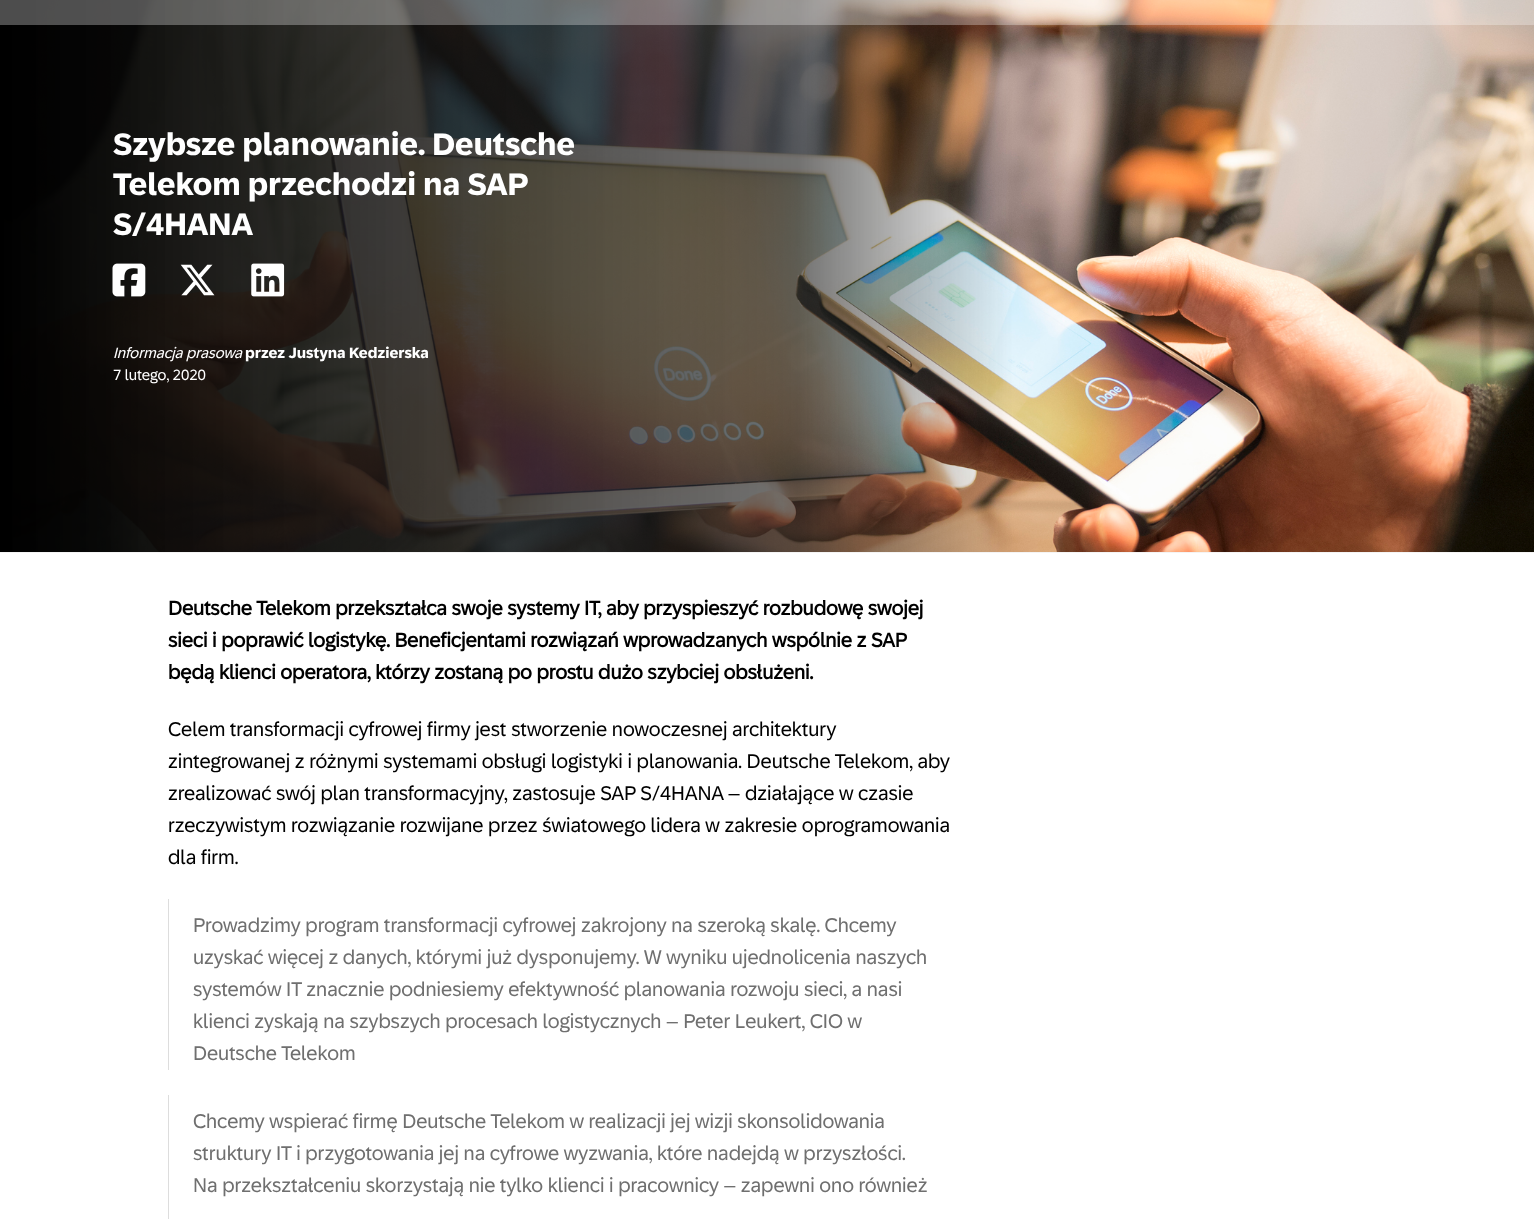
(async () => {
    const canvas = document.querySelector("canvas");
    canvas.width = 1534;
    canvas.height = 1219;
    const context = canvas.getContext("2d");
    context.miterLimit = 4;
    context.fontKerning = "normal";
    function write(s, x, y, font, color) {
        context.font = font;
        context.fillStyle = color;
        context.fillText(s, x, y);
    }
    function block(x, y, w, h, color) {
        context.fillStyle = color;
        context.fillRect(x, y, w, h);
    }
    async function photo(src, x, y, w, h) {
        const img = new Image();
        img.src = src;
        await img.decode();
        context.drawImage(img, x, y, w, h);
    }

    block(0, 0, 1534, 1219, "rgb(244, 244, 244)");
    await photo("media/1.png", 0, 0, 1534, 552);
    block(0, 0, 1534, 25, "rgba(255, 255, 255, 0.3)");
    write("Szybsze planowanie. Deutsche", 113, 155, "bold 31.25px '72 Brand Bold'", "rgb(255, 255, 255)");
    write("Telekom przechodzi na SAP", 113, 195, "bold 31.25px '72 Brand Bold'", "rgb(255, 255, 255)");
    write("S/4HANA", 113, 235, "bold 31.25px '72 Brand Bold'", "rgb(255, 255, 255)");
    await photo("media/2.png", 112, 263, 34, 34);
    await photo("media/3.png", 180, 264, 35, 32);
    await photo("media/4.png", 251, 263, 34, 34);
    write("Informacja prasowa", 113, 358, "italic 15px '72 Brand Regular'", "rgb(255, 255, 255)");
    write("przez Justyna Kedzierska", 245, 358, "bold 15px '72 Brand Bold'", "rgb(255, 255, 255)");
    write("7 lutego, 2020", 113, 380, "15px '72 Brand Regular'", "rgb(255, 255, 255)");
    block(0, 553, 1534, 666, "rgb(255, 255, 255)");
    write("Deutsche Telekom przekształca swoje systemy IT, aby przyspieszyć rozbudowę swojej", 168, 615, "bold 20px '72 Brand Regular'", "rgb(0, 0, 0)");
    write("sieci i poprawić logistykę. Beneficjentami rozwiązań wprowadzanych wspólnie z SAP", 168, 647, "bold 20px '72 Brand Regular'", "rgb(0, 0, 0)");
    write("będą klienci operatora, którzy zostaną po prostu dużo szybciej obsłużeni.", 168, 679, "bold 20px '72 Brand Regular'", "rgb(0, 0, 0)");
    write("Celem transformacji cyfrowej firmy jest stworzenie nowoczesnej architektury", 168, 736, "20px '72 Brand Regular'", "rgb(0, 0, 0)");
    write("zintegrowanej z różnymi systemami obsługi logistyki i planowania. Deutsche Telekom, aby", 168, 768, "20px '72 Brand Regular'", "rgb(0, 0, 0)");
    write("zrealizować swój plan transformacyjny, zastosuje SAP S/4HANA – działające w czasie", 168, 800, "20px '72 Brand Regular'", "rgb(0, 0, 0)");
    write("rzeczywistym rozwiązanie rozwijane przez światowego lidera w zakresie oprogramowania", 168, 832, "20px '72 Brand Regular'", "rgb(0, 0, 0)");
    write("dla firm.", 168, 864, "20px '72 Brand Regular'", "rgb(0, 0, 0)");
    block(168, 899, 1, 171, "rgb(221, 221, 221)");
    write("Prowadzimy program transformacji cyfrowej zakrojony na szeroką skalę. Chcemy", 193, 932, "20px '72 Brand Regular'", "rgb(111, 111, 111)");
    write("uzyskać więcej z danych, którymi już dysponujemy. W wyniku ujednolicenia naszych", 193, 964, "20px '72 Brand Regular'", "rgb(111, 111, 111)");
    write("systemów IT znacznie podniesiemy efektywność planowania rozwoju sieci, a nasi", 193, 996, "20px '72 Brand Regular'", "rgb(111, 111, 111)");
    write("klienci zyskają na szybszych procesach logistycznych – Peter Leukert, CIO w", 193, 1028, "20px '72 Brand Regular'", "rgb(111, 111, 111)");
    write("Deutsche Telekom", 193, 1060, "20px '72 Brand Regular'", "rgb(111, 111, 111)");
    block(168, 1095, 1, 124, "rgb(221, 221, 221)");
    write("Chcemy wspierać firmę Deutsche Telekom w realizacji jej wizji skonsolidowania", 193, 1128, "20px '72 Brand Regular'", "rgb(111, 111, 111)");
    write("struktury IT i przygotowania jej na cyfrowe wyzwania, które nadejdą w przyszłości.", 193, 1160, "20px '72 Brand Regular'", "rgb(111, 111, 111)");
    write("Na przekształceniu skorzystają nie tylko klienci i pracownicy – zapewni ono również", 193, 1192, "20px '72 Brand Regular'", "rgb(111, 111, 111)");
})();
